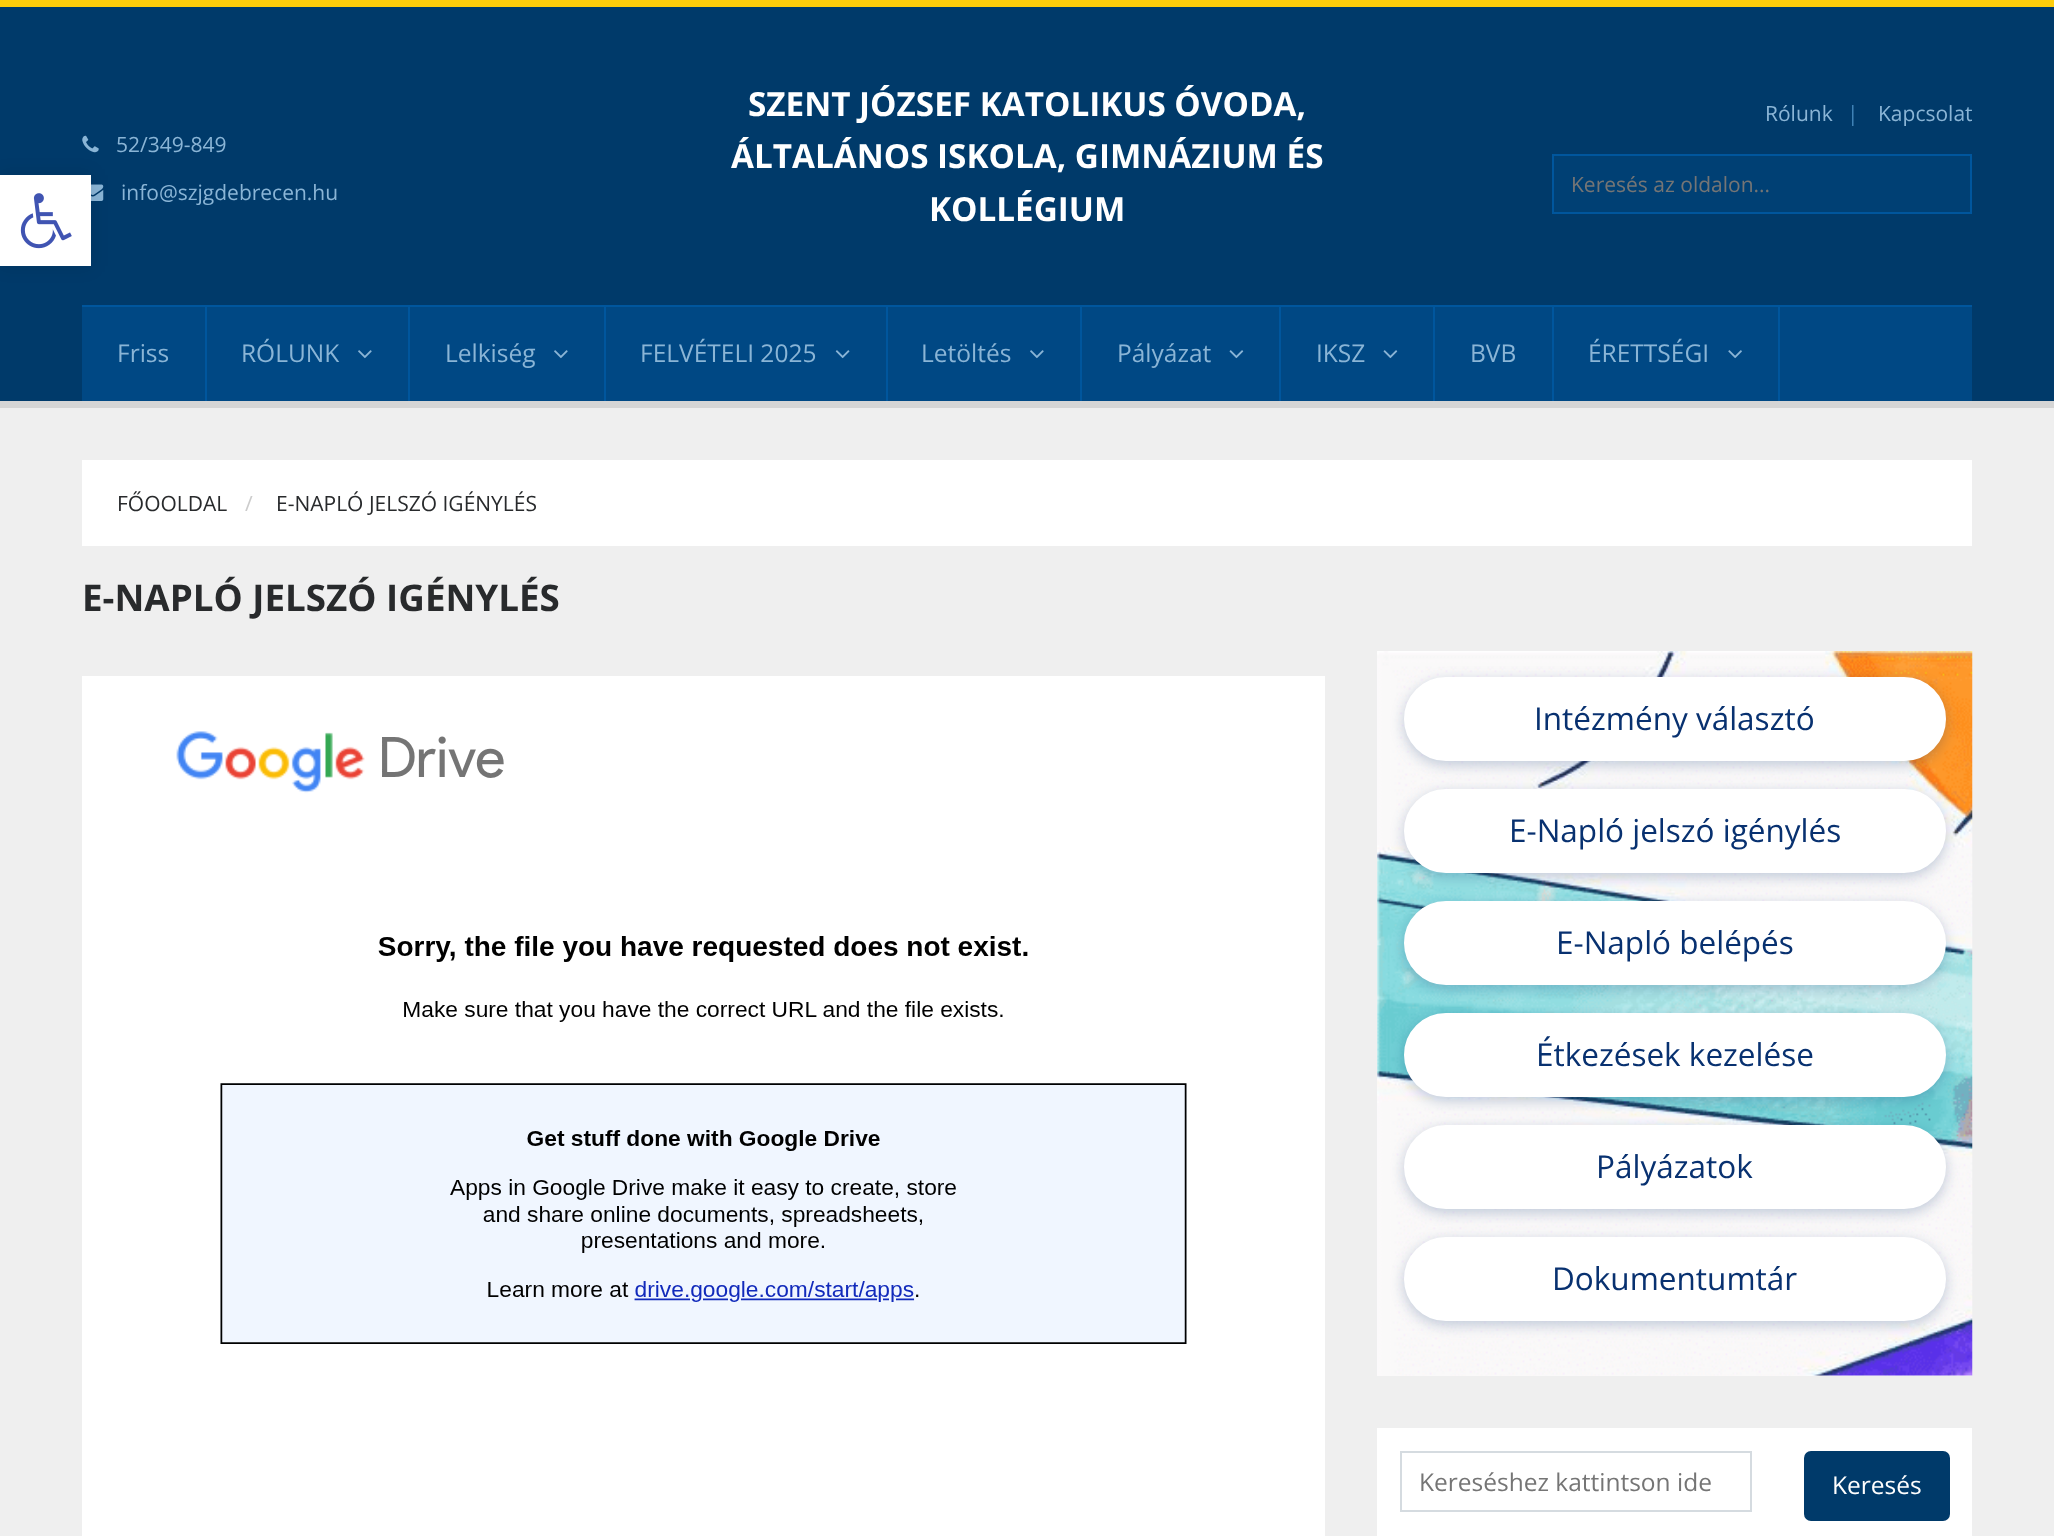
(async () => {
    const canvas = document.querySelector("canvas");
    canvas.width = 2054;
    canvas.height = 1536;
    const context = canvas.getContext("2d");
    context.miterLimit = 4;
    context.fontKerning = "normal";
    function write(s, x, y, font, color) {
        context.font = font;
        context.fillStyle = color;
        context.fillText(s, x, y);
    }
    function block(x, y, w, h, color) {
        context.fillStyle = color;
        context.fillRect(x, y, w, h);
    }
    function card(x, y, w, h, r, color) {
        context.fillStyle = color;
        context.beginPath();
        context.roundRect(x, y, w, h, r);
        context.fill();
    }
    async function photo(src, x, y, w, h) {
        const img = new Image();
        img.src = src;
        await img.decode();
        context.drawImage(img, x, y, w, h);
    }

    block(0, 0, 2054, 1536, "rgb(239, 239, 239)");
    block(0, 0, 2054, 7, "rgb(254, 205, 11)");
    block(0, 7, 2054, 394, "rgb(0, 58, 106)");
    await photo("media/2.png", 82, 135, 17, 18);
    await photo("media/3.png", 91, 184, 13, 17);
    context.fillStyle = "rgba(0, 0, 0, 0.1)";
    context.filter = "blur(9px)";
    context.beginPath();
    context.rect(0, 175, 91, 91);
    context.fill();
    context.filter = "none";
    block(0, 175, 91, 91, "rgb(255, 255, 255)");
    await photo("media/1.png", 20, 193, 52, 56);
    block(0, 401, 2054, 7, "rgb(213, 213, 213)");
    write("52/349-849", 116, 152, "21px Open Sans", "rgb(138, 181, 214)");
    write("info@szjgdebrecen.hu", 121, 200, "21px Open Sans", "rgb(138, 181, 214)");
    write("SZENT JÓZSEF KATOLIKUS ÓVODA,", 748, 116, "bold 33.25px Open Sans", "rgb(255, 255, 255)");
    write("ÁLTALÁNOS ISKOLA, GIMNÁZIUM ÉS", 731, 168, "bold 33.25px Open Sans", "rgb(255, 255, 255)");
    write("KOLLÉGIUM", 929, 221, "bold 33.25px Open Sans", "rgb(255, 255, 255)");
    write("Rólunk", 1765, 121, "21px Open Sans", "rgb(138, 181, 214)");
    write("|", 1847, 121, "21px Open Sans", "rgb(65, 133, 185)");
    write("Kapcsolat", 1878, 121, "21px Open Sans", "rgb(138, 181, 214)");
    context.fillStyle = "rgb(0, 64, 116)";
    context.beginPath();
    context.rect(1553, 155, 418, 58);
    context.fill();
    context.strokeStyle = "rgb(0, 86, 157)";
    context.lineWidth = 2;
    context.stroke();
    write("Keresés az oldalon...", 1571, 192, "21px Open Sans", "rgb(117, 117, 117)");
    block(82, 307, 1890, 94, "rgb(0, 72, 132)");
    block(82, 305, 1890, 2, "rgb(0, 86, 157)");
    block(205, 306, 2, 95, "rgb(0, 86, 157)");
    write("Friss", 117, 362, "24.5px Open Sans", "rgb(138, 181, 214)");
    block(408, 306, 2, 95, "rgb(0, 86, 157)");
    write("RÓLUNK", 241, 362, "24.5px Open Sans", "rgb(138, 181, 214)");
    await photo("media/4.png", 358, 350, 14, 9);
    block(604, 306, 2, 95, "rgb(0, 86, 157)");
    write("Lelkiség", 445, 362, "24.5px Open Sans", "rgb(138, 181, 214)");
    await photo("media/4.png", 554, 350, 14, 9);
    block(886, 306, 2, 95, "rgb(0, 86, 157)");
    write("FELVÉTELI 2025", 640, 362, "24.5px Open Sans", "rgb(138, 181, 214)");
    await photo("media/5.png", 835, 350, 15, 9);
    block(1080, 306, 2, 95, "rgb(0, 86, 157)");
    write("Letöltés", 921, 362, "24.5px Open Sans", "rgb(138, 181, 214)");
    await photo("media/4.png", 1030, 350, 14, 9);
    block(1279, 306, 2, 95, "rgb(0, 86, 157)");
    write("Pályázat", 1117, 362, "24.5px Open Sans", "rgb(138, 181, 214)");
    await photo("media/6.png", 1229, 350, 15, 9);
    block(1433, 306, 2, 95, "rgb(0, 86, 157)");
    write("IKSZ", 1316, 362, "24.5px Open Sans", "rgb(138, 181, 214)");
    await photo("media/6.png", 1383, 350, 15, 9);
    block(1552, 306, 2, 95, "rgb(0, 86, 157)");
    write("BVB", 1470, 362, "24.5px Open Sans", "rgb(138, 181, 214)");
    block(1778, 306, 2, 95, "rgb(0, 86, 157)");
    write("ÉRETTSÉGI", 1588, 362, "24.5px Open Sans", "rgb(138, 181, 214)");
    await photo("media/7.png", 1728, 350, 14, 9);
    block(82, 460, 1890, 86, "rgb(255, 255, 255)");
    write("FŐOOLDAL", 117, 511, "21px Open Sans", "rgb(40, 42, 44)");
    write("/", 245, 511, "21px Open Sans", "rgb(204, 204, 204)");
    write("E-NAPLÓ JELSZÓ IGÉNYLÉS", 276, 511, "21px Open Sans", "rgb(40, 42, 44)");
    write("E-NAPLÓ JELSZÓ IGÉNYLÉS", 82, 611, "bold 36.75px Open Sans", "rgb(40, 42, 44)");
    block(82, 676, 1243, 860, "rgb(255, 255, 255)");
    await photo("media/8.png", 176, 731, 1011, 613);
    block(1377, 651, 595, 725, "rgb(250, 249, 249)");
    await photo("media/9.png", 1377, 651, 596, 725);
    context.fillStyle = "rgba(8, 49, 112, 0.24)";
    context.filter = "blur(7px)";
    context.beginPath();
    context.roundRect(1404, 681, 542, 84, 42);
    context.fill();
    context.filter = "none";
    context.fillStyle = "rgb(255, 255, 255)";
    context.beginPath();
    context.roundRect(1406, 679, 538, 80, 40);
    context.fill();
    context.strokeStyle = "rgb(255, 255, 255)";
    context.lineWidth = 4;
    context.stroke();
    write("Intézmény választó", 1534, 730, "31.5px Open Sans", "rgb(8, 49, 112)");
    context.fillStyle = "rgba(8, 49, 112, 0.24)";
    context.filter = "blur(7px)";
    context.beginPath();
    context.roundRect(1404, 793, 542, 84, 42);
    context.fill();
    context.filter = "none";
    context.fillStyle = "rgb(255, 255, 255)";
    context.beginPath();
    context.roundRect(1406, 791, 538, 80, 40);
    context.fill();
    context.stroke();
    write("E-Napló jelszó igénylés", 1509, 842, "31.5px Open Sans", "rgb(8, 49, 112)");
    context.fillStyle = "rgba(8, 49, 112, 0.24)";
    context.filter = "blur(7px)";
    context.beginPath();
    context.roundRect(1404, 905, 542, 84, 42);
    context.fill();
    context.filter = "none";
    context.fillStyle = "rgb(255, 255, 255)";
    context.beginPath();
    context.roundRect(1406, 903, 538, 80, 40);
    context.fill();
    context.stroke();
    write("E-Napló belépés", 1556, 954, "31.5px Open Sans", "rgb(8, 49, 112)");
    context.fillStyle = "rgba(8, 49, 112, 0.24)";
    context.filter = "blur(7px)";
    context.beginPath();
    context.roundRect(1404, 1017, 542, 84, 42);
    context.fill();
    context.filter = "none";
    context.fillStyle = "rgb(255, 255, 255)";
    context.beginPath();
    context.roundRect(1406, 1015, 538, 80, 40);
    context.fill();
    context.stroke();
    write("Étkezések kezelése", 1536, 1066, "31.5px Open Sans", "rgb(8, 49, 112)");
    context.fillStyle = "rgba(8, 49, 112, 0.24)";
    context.filter = "blur(7px)";
    context.beginPath();
    context.roundRect(1404, 1129, 542, 84, 42);
    context.fill();
    context.filter = "none";
    context.fillStyle = "rgb(255, 255, 255)";
    context.beginPath();
    context.roundRect(1406, 1127, 538, 80, 40);
    context.fill();
    context.stroke();
    write("Pályázatok", 1596, 1178, "31.5px Open Sans", "rgb(8, 49, 112)");
    context.fillStyle = "rgba(8, 49, 112, 0.24)";
    context.filter = "blur(7px)";
    context.beginPath();
    context.roundRect(1404, 1241, 542, 84, 42);
    context.fill();
    context.filter = "none";
    context.fillStyle = "rgb(255, 255, 255)";
    context.beginPath();
    context.roundRect(1406, 1239, 538, 80, 40);
    context.fill();
    context.stroke();
    write("Dokumentumtár", 1552, 1290, "31.5px Open Sans", "rgb(8, 49, 112)");
    block(1377, 1428, 595, 108, "rgb(255, 255, 255)");
    context.strokeStyle = "rgb(213, 219, 224)";
    context.lineWidth = 2;
    context.strokeRect(1401, 1452, 350, 59);
    write("Kereséshez kattintson ide", 1419, 1491, "24.5px Open Sans", "rgb(117, 117, 117)");
    card(1804, 1451, 146, 70, 7, "rgb(0, 58, 106)");
    write("Keresés", 1832, 1494, "24.5px Open Sans", "rgb(255, 255, 255)");
})();
